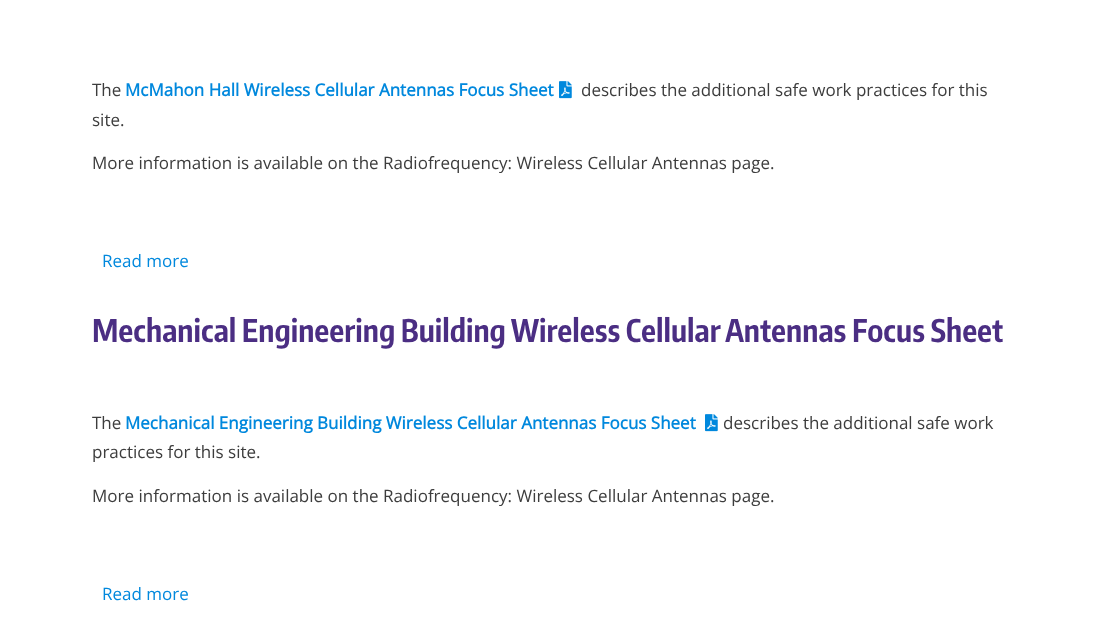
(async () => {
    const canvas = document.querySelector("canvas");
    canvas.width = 1113;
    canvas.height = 634;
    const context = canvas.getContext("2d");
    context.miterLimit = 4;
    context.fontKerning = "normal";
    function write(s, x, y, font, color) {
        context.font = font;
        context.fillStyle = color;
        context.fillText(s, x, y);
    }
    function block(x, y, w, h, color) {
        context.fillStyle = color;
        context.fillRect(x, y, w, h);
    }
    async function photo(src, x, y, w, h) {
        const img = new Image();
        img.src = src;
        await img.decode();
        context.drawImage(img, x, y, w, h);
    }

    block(0, 0, 1113, 634, "rgb(255, 255, 255)");
    write("The", 92, 96, "17px Open Sans", "rgb(61, 61, 61)");
    write("McMahon Hall Wireless Cellular Antennas Focus Sheet", 125, 96, "bold 17px Open Sans", "rgb(0, 136, 221)");
    await photo("media/1.png", 559, 81, 13, 18);
    write("describes the additional safe work practices for this", 581, 96, "17px Open Sans", "rgb(61, 61, 61)");
    write("site.", 92, 126, "17px Open Sans", "rgb(61, 61, 61)");
    write("More information is available on the Radiofrequency: Wireless Cellular Antennas page.", 92, 169, "17px Open Sans", "rgb(61, 61, 61)");
    write("Read more", 102, 267, "17px Open Sans", "rgb(0, 136, 221)");
    write("Mechanical Engineering Building Wireless Cellular Antennas Focus Sheet", 92, 342, "bold 31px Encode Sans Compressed", "rgb(75, 46, 131)");
    write("The", 92, 429, "17px Open Sans", "rgb(61, 61, 61)");
    write("Mechanical Engineering Building Wireless Cellular Antennas Focus Sheet", 125, 429, "bold 17px Open Sans", "rgb(0, 136, 221)");
    await photo("media/1.png", 705, 414, 13, 18);
    write("describes the additional safe work", 723, 429, "17px Open Sans", "rgb(61, 61, 61)");
    write("practices for this site.", 92, 458, "17px Open Sans", "rgb(61, 61, 61)");
    write("More information is available on the Radiofrequency: Wireless Cellular Antennas page.", 92, 502, "17px Open Sans", "rgb(61, 61, 61)");
    write("Read more", 102, 600, "17px Open Sans", "rgb(0, 136, 221)");
})();
